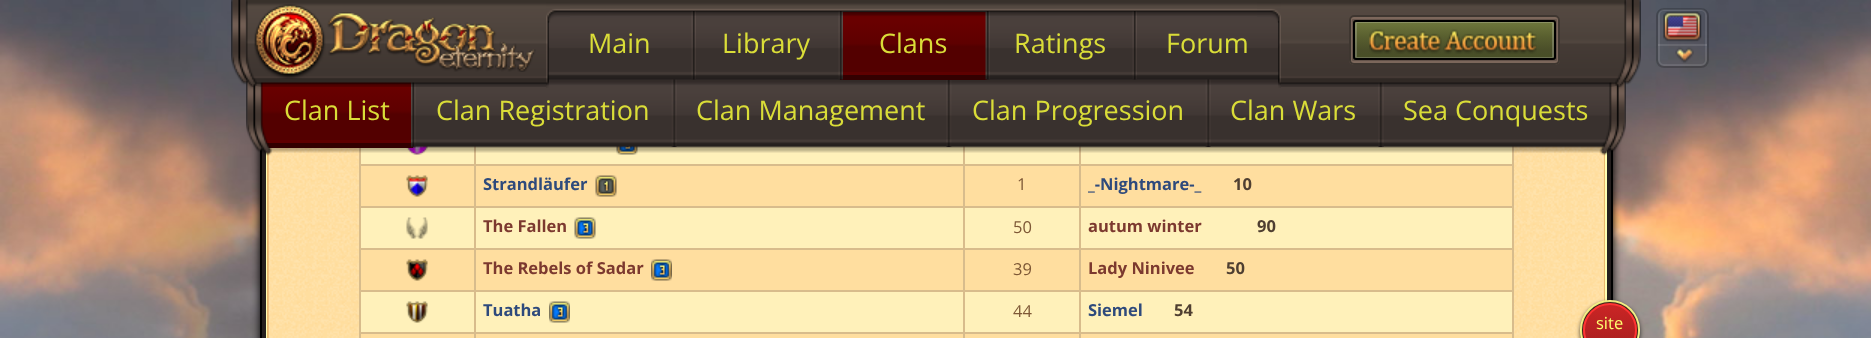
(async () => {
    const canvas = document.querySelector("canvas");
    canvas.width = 1871;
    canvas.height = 338;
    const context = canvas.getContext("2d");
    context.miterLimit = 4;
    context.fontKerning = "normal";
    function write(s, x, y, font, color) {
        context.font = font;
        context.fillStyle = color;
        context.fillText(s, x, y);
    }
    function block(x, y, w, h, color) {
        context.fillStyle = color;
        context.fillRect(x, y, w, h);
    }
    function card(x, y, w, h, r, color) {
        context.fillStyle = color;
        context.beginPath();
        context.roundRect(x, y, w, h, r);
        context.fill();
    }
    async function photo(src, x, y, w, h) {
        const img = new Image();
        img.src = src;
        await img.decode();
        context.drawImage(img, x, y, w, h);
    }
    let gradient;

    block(0, 0, 1871, 338, "rgb(255, 255, 255)");
    await photo("media/1.png", 0, 0, 1871, 338);
    context.fillStyle = "rgb(0, 0, 0)";
    context.filter = "blur(4px)";
    context.beginPath();
    context.rect(260, -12, 1353, 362);
    context.fill();
    context.filter = "none";
    block(262, 147, 1349, 191, "rgb(36, 31, 30)");
    context.strokeStyle = "rgb(0, 0, 0)";
    context.lineWidth = 2;
    context.strokeRect(261, -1, 1351, 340);
    context.fillStyle = "rgb(255, 255, 179)";
    context.beginPath();
    context.moveTo(269, 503);
    context.bezierCurveTo(269, 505, 271, 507, 274, 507);
    context.lineTo(1602, 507);
    context.bezierCurveTo(1605, 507, 1607, 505, 1607, 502);
    context.lineTo(1607, -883);
    context.bezierCurveTo(1607, -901, 1593, -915, 1575, -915);
    context.lineTo(1574, -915);
    context.bezierCurveTo(1590, -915, 1604, -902, 1604, -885);
    context.lineTo(1604, 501);
    context.bezierCurveTo(1604, 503, 1602, 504, 1600, 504);
    context.lineTo(272, 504);
    context.bezierCurveTo(270, 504, 270, 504, 269, 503);
    context.closePath();
    context.fill();
    context.beginPath();
    context.moveTo(298, -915);
    context.bezierCurveTo(280, -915, 266, -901, 266, -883);
    context.lineTo(266, 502);
    context.bezierCurveTo(266, 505, 268, 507, 271, 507);
    context.lineTo(1599, 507);
    context.bezierCurveTo(1602, 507, 1604, 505, 1604, 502);
    context.lineTo(1604, -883);
    context.bezierCurveTo(1604, -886, 1603, -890, 1602, -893);
    context.lineTo(1604, -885);
    context.lineTo(1604, 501);
    context.bezierCurveTo(1604, 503, 1602, 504, 1600, 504);
    context.lineTo(272, 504);
    context.bezierCurveTo(270, 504, 268, 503, 268, 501);
    context.lineTo(268, -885);
    context.bezierCurveTo(268, -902, 282, -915, 298, -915);
    context.closePath();
    context.fill();
    context.strokeStyle = "rgb(234, 184, 111)";
    context.strokeRect(268, -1, 1336, 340);
    block(1603, 146, 1, 155, "rgb(255, 222, 159)");
    await photo("media/27.png", 268, 146, 1335, 192);
    block(360, 334, 1154, 4, "rgb(255, 222, 159)");
    block(1512, 146, 2, 192, "rgb(216, 188, 140)");
    block(359, 148, 2, 190, "rgb(216, 188, 140)");
    block(361, 146, 1151, 18, "rgb(255, 241, 186)");
    await photo("media/28.png", 406, 146, 22, 9);
    block(1079, 164, 435, 2, "rgb(216, 188, 140)");
    block(361, 166, 1151, 40, "rgb(255, 222, 159)");
    block(1079, 206, 435, 2, "rgb(216, 188, 140)");
    block(361, 208, 1151, 40, "rgb(255, 241, 186)");
    block(1079, 248, 435, 2, "rgb(216, 188, 140)");
    block(361, 250, 1151, 40, "rgb(255, 222, 159)");
    block(1079, 290, 435, 2, "rgb(216, 188, 140)");
    block(361, 292, 1151, 40, "rgb(255, 241, 186)");
    block(1079, 332, 435, 2, "rgb(216, 188, 140)");
    block(1079, 332, 2, 6, "rgb(216, 188, 140)");
    block(963, 332, 117, 2, "rgb(216, 188, 140)");
    block(1079, 290, 2, 43, "rgb(216, 188, 140)");
    block(963, 290, 117, 2, "rgb(216, 188, 140)");
    block(1079, 248, 2, 43, "rgb(216, 188, 140)");
    block(963, 248, 117, 2, "rgb(216, 188, 140)");
    block(1079, 206, 2, 43, "rgb(216, 188, 140)");
    block(963, 206, 117, 2, "rgb(216, 188, 140)");
    block(1079, 164, 2, 43, "rgb(216, 188, 140)");
    block(963, 164, 117, 2, "rgb(216, 188, 140)");
    block(963, 332, 2, 6, "rgb(216, 188, 140)");
    block(474, 332, 491, 2, "rgb(216, 188, 140)");
    block(963, 290, 2, 43, "rgb(216, 188, 140)");
    block(474, 290, 491, 2, "rgb(216, 188, 140)");
    block(963, 248, 2, 43, "rgb(216, 188, 140)");
    block(474, 248, 491, 2, "rgb(216, 188, 140)");
    block(963, 206, 2, 43, "rgb(216, 188, 140)");
    block(474, 206, 491, 2, "rgb(216, 188, 140)");
    block(963, 164, 2, 43, "rgb(216, 188, 140)");
    block(474, 164, 491, 2, "rgb(216, 188, 140)");
    block(474, 332, 2, 6, "rgb(216, 188, 140)");
    block(359, 332, 117, 2, "rgb(216, 188, 140)");
    block(474, 290, 2, 43, "rgb(216, 188, 140)");
    block(359, 290, 117, 2, "rgb(216, 188, 140)");
    block(474, 248, 2, 43, "rgb(216, 188, 140)");
    block(359, 248, 117, 2, "rgb(216, 188, 140)");
    block(474, 206, 2, 43, "rgb(216, 188, 140)");
    block(359, 206, 117, 2, "rgb(216, 188, 140)");
    block(474, 164, 2, 43, "rgb(216, 188, 140)");
    block(359, 164, 117, 2, "rgb(216, 188, 140)");
    block(474, 146, 2, 19, "rgb(216, 188, 140)");
    await photo("media/29.png", 616, 146, 22, 9);
    block(963, 146, 2, 19, "rgb(216, 188, 140)");
    block(1079, 146, 2, 19, "rgb(216, 188, 140)");
    await photo("media/22.png", 261, 79, 1350, 74);
    gradient = context.createLinearGradient(337, 79, 337, 143);
    gradient.addColorStop(0, "rgb(91, 0, 0)");
    gradient.addColorStop(0.02, "rgb(91, 0, 0)");
    gradient.addColorStop(0.09, "rgb(105, 0, 0)");
    gradient.addColorStop(0.14, "rgb(105, 0, 0)");
    gradient.addColorStop(0.5, "rgb(94, 0, 0)");
    gradient.addColorStop(0.55, "rgb(83, 0, 0)");
    gradient.addColorStop(1, "rgb(83, 0, 0)");
    context.fillStyle = gradient;
    context.fillRect(261, 82, 150, 58);
    block(261, 143, 152, 5, "rgb(51, 0, 0)");
    block(261, 140, 152, 3, "rgb(94, 0, 0)");
    await photo("media/20.png", 246, 79, 27, 77);
    await photo("media/23.png", 411, 82, 5, 66);
    await photo("media/4.png", 246, 0, 300, 87);
    await photo("media/5.png", 254, 4, 72, 75);
    await photo("media/2.png", 231, 0, 26, 89);
    await photo("media/21.png", 1599, 79, 27, 77);
    await photo("media/26.png", 1378, 82, 6, 65);
    await photo("media/10.png", 1281, 0, 345, 87);
    await photo("media/3.png", 1615, 0, 26, 89);
    await photo("media/6.png", 327, 12, 209, 60);
    await photo("media/24.png", 671, 79, 6, 68);
    await photo("media/25.png", 946, 80, 6, 67);
    await photo("media/24.png", 1205, 79, 6, 68);
    await photo("media/16.png", 546, 10, 735, 75);
    await photo("media/17.png", 691, 11, 5, 69);
    gradient = context.createLinearGradient(914, 12, 914, 75);
    gradient.addColorStop(0, "rgb(91, 0, 0)");
    gradient.addColorStop(0.02, "rgb(91, 0, 0)");
    gradient.addColorStop(0.09, "rgb(105, 0, 0)");
    gradient.addColorStop(0.14, "rgb(105, 0, 0)");
    gradient.addColorStop(0.5, "rgb(94, 0, 0)");
    gradient.addColorStop(0.55, "rgb(83, 0, 0)");
    gradient.addColorStop(1, "rgb(83, 0, 0)");
    context.fillStyle = gradient;
    context.fillRect(843, 12, 143, 60);
    block(840, 75, 147, 5, "rgb(51, 0, 0)");
    block(840, 72, 147, 3, "rgb(94, 0, 0)");
    await photo("media/18.png", 838, 11, 5, 69);
    await photo("media/19.png", 985, 11, 5, 69);
    await photo("media/17.png", 1132, 11, 5, 69);
    await photo("media/7.png", 570, 0, 687, 16);
    await photo("media/14.png", 546, 20, 3, 68);
    await photo("media/8.png", 546, 0, 24, 23);
    await photo("media/15.png", 1278, 20, 3, 68);
    await photo("media/9.png", 1257, 0, 24, 23);
    card(1349, 15, 211, 50, 5, "rgb(100, 83, 74)");
    context.beginPath();
    context.roundRect(1351, 18, 207, 44, 2);
    context.strokeStyle = "rgb(124, 103, 91)";
    context.stroke();
    context.beginPath();
    context.roundRect(1350, 16, 209, 48, 4);
    context.strokeStyle = "rgb(62, 54, 48)";
    context.stroke();
    context.save();
    context.beginPath();
    context.roundRect(1353, 20, 203, 40, 3);
    context.clip();
    gradient = context.createLinearGradient(1454, 21, 1454, 59);
    gradient.addColorStop(0, "rgb(112, 120, 61)");
    gradient.addColorStop(0.41, "rgb(89, 95, 47)");
    gradient.addColorStop(0.77, "rgb(74, 78, 41)");
    gradient.addColorStop(1, "rgb(72, 79, 38)");
    context.fillStyle = gradient;
    context.fillRect(1353, 21, 203, 38);
    context.restore();
    context.strokeStyle = "rgba(255, 255, 255, 0.2)";
    context.strokeRect(1356, 22, 197, 36);
    context.beginPath();
    context.roundRect(1354, 21, 201, 38, 2);
    context.strokeStyle = "rgb(0, 0, 0)";
    context.stroke();
    await photo("media/11.png", 1369, 29, 168, 25);
    context.beginPath();
    context.roundRect(1659, 10, 47, 55, 5);
    context.strokeStyle = "rgba(255, 255, 255, 0.1)";
    context.stroke();
    context.beginPath();
    context.roundRect(1657, 9, 51, 58, 7);
    context.strokeStyle = "rgba(0, 0, 0, 0.2)";
    context.stroke();
    block(1658, 44, 49, 2, "rgba(255, 255, 255, 0.1)");
    await photo("media/12.png", 1663, 11, 39, 31);
    await photo("media/13.png", 1675, 47, 19, 16);
    write("Main", 588, 53, "27px Open Sans", "rgb(218, 221, 56)");
    write("Library", 722, 53, "27px Open Sans", "rgb(218, 221, 56)");
    write("Clans", 879, 53, "27px Open Sans", "rgb(218, 221, 56)");
    write("Ratings", 1014, 53, "27px Open Sans", "rgb(218, 221, 56)");
    write("Forum", 1166, 53, "27px Open Sans", "rgb(218, 221, 56)");
    write("Clan List", 284, 120, "27px Open Sans", "rgb(218, 221, 56)");
    write("Clan Registration", 436, 120, "27px Open Sans", "rgb(218, 221, 56)");
    write("Clan Management", 696, 120, "27px Open Sans", "rgb(218, 221, 56)");
    write("Clan Progression", 972, 120, "27px Open Sans", "rgb(218, 221, 56)");
    write("Clan Wars", 1230, 120, "27px Open Sans", "rgb(218, 221, 56)");
    write("Sea Conquests", 1403, 120, "27px Open Sans", "rgb(218, 221, 56)");
    await photo("media/30.png", 406, 175, 22, 22);
    write("Strandläufer", 483, 190, "bold 16.5px Open Sans", "rgb(46, 74, 124)");
    await photo("media/31.png", 595, 175, 22, 22);
    write("1", 1017, 190, "16.5px Open Sans", "rgb(126, 88, 54)");
    write("_-Nightmare-_", 1088, 190, "bold 16.5px Open Sans", "rgb(46, 74, 124)");
    write("10", 1233, 190, "bold 16.5px Open Sans", "rgb(79, 63, 49)");
    await photo("media/32.png", 406, 217, 22, 22);
    write("The Fallen", 483, 232, "bold 16.5px Open Sans", "rgb(124, 57, 47)");
    await photo("media/33.png", 574, 217, 22, 22);
    write("50", 1013, 233, "16.5px Open Sans", "rgb(126, 88, 54)");
    write("autum winter", 1088, 232, "bold 16.5px Open Sans", "rgb(124, 57, 47)");
    write("90", 1257, 232, "bold 16.5px Open Sans", "rgb(79, 63, 49)");
    await photo("media/34.png", 406, 259, 22, 22);
    write("The Rebels of Sadar", 483, 274, "bold 16.5px Open Sans", "rgb(124, 57, 47)");
    await photo("media/35.png", 651, 259, 21, 22);
    write("39", 1013, 275, "16.5px Open Sans", "rgb(126, 88, 54)");
    write("Lady Ninivee", 1088, 274, "bold 16.5px Open Sans", "rgb(124, 57, 47)");
    write("50", 1226, 274, "bold 16.5px Open Sans", "rgb(79, 63, 49)");
    await photo("media/36.png", 406, 301, 22, 22);
    write("Tuatha", 483, 316, "bold 16.5px Open Sans", "rgb(46, 74, 124)");
    await photo("media/37.png", 549, 301, 21, 22);
    write("44", 1013, 317, "16.5px Open Sans", "rgb(126, 88, 54)");
    write("Siemel", 1088, 316, "bold 16.5px Open Sans", "rgb(46, 74, 124)");
    write("54", 1174, 316, "bold 16.5px Open Sans", "rgb(79, 63, 49)");
    context.fillStyle = "rgba(0, 0, 0, 0.7)";
    context.filter = "blur(2px)";
    context.beginPath();
    context.roundRect(1580, 302, 60, 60, 30);
    context.fill();
    context.filter = "none";
    context.fillStyle = "rgb(86, 49, 32)";
    context.beginPath();
    context.arc(1610, 330, 29, 0, Math.PI * 2);
    context.fill();
    context.strokeStyle = "rgb(255, 253, 139)";
    context.stroke();
    context.fillStyle = "rgba(0, 0, 0, 0.8)";
    context.filter = "blur(1.5px)";
    context.beginPath();
    context.roundRect(1583, 303, 54, 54, 27);
    context.fill();
    context.filter = "none";
    context.save();
    context.beginPath();
    context.roundRect(1583, 303, 54, 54, 27);
    context.clip();
    gradient = context.createLinearGradient(1610, 305, 1610, 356);
    gradient.addColorStop(0, "rgb(202, 37, 37)");
    gradient.addColorStop(1, "rgb(161, 29, 29)");
    context.fillStyle = gradient;
    context.fillRect(1583, 305, 54, 33);
    context.restore();
    context.beginPath();
    context.arc(1610, 330, 26, 0, Math.PI * 2);
    context.strokeStyle = "rgb(255, 52, 51)";
    context.stroke();
    write("site", 1596, 329, "16.5px Open Sans", "rgb(255, 255, 110)");
})();
